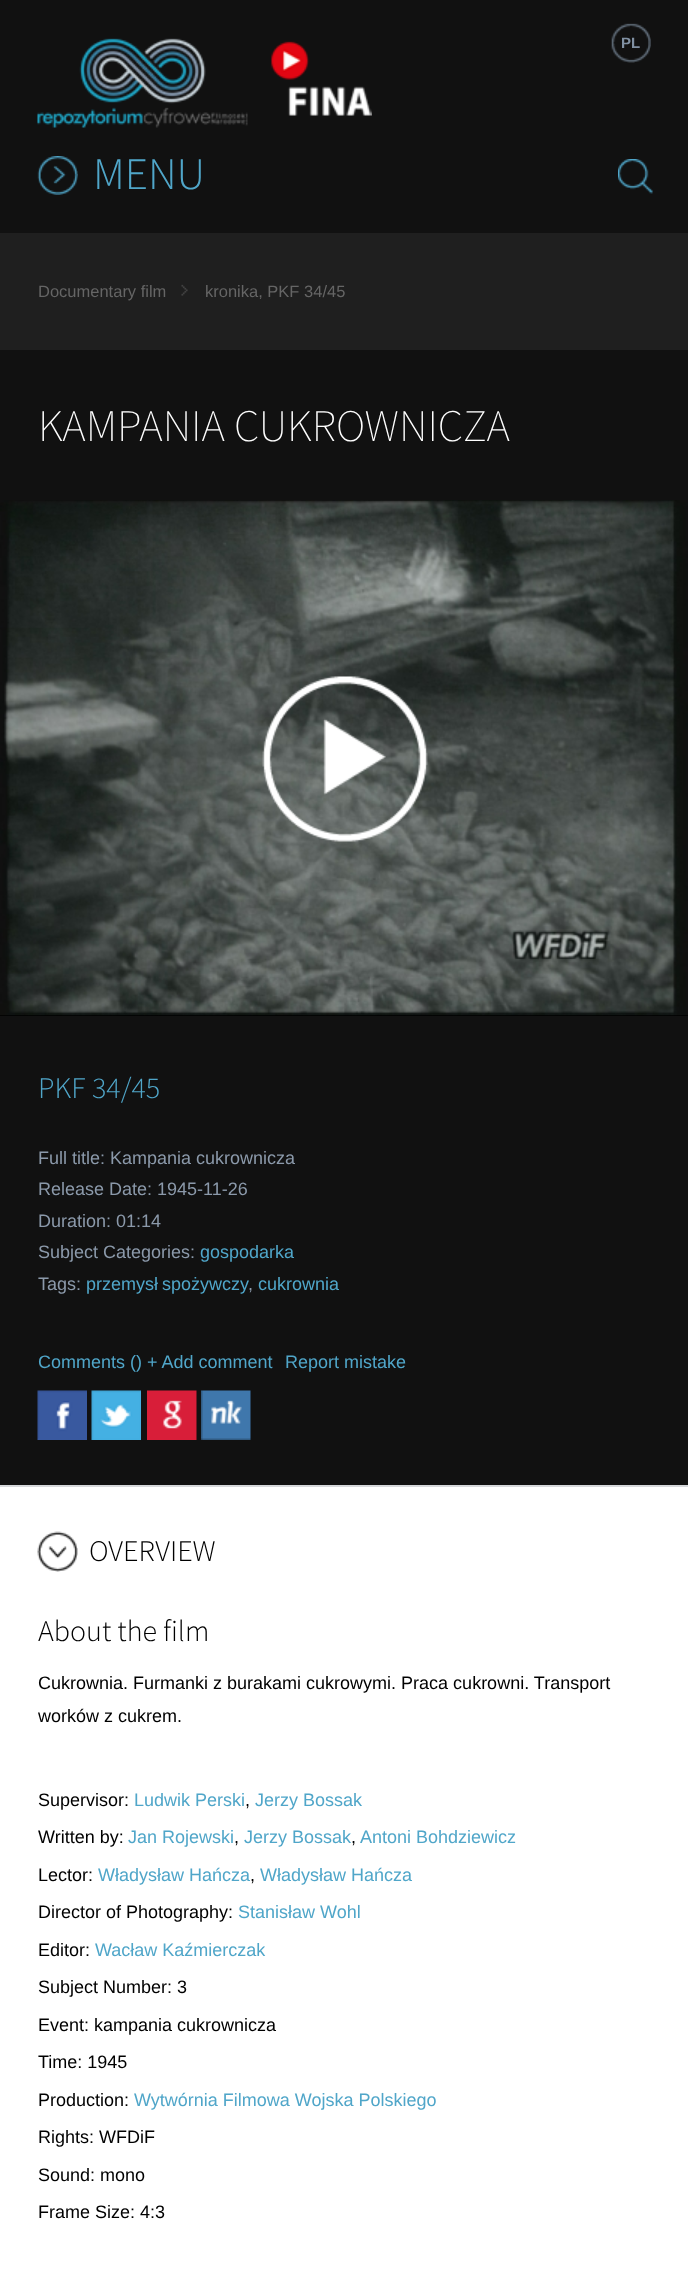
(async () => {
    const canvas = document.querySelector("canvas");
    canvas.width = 688;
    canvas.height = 2288;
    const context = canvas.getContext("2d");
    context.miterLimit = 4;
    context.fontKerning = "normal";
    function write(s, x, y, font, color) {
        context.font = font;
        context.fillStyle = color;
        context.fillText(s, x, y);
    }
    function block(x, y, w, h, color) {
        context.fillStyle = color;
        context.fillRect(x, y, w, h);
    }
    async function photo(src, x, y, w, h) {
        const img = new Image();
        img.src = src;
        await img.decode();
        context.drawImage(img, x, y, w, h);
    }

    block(0, 0, 688, 2288, "rgb(17, 17, 17)");
    await photo("media/1.png", 37, 38, 211, 90);
    await photo("media/2.png", 271, 41, 101, 75);
    await photo("media/3.png", 611, 23, 40, 40);
    write("PL", 621, 48, "bold 15px Liberation Sans", "rgb(128, 144, 162)");
    await photo("media/4.png", 37, 156, 41, 39);
    write("MENU", 93, 189, "300 45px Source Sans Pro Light", "rgb(80, 166, 201)");
    await photo("media/5.png", 618, 159, 35, 35);
    block(0, 233, 688, 117, "rgb(31, 31, 31)");
    write("Documentary film", 38, 297, "16.5px Liberation Sans", "rgb(101, 101, 101)");
    await photo("media/6.png", 181, 284, 7, 12);
    write("kronika, PKF 34/45", 205, 297, "16.5px Liberation Sans", "rgb(101, 101, 101)");
    write("KAMPANIA CUKROWNICZA", 38, 441, "200 45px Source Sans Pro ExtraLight", "rgb(255, 255, 255)");
    block(0, 1015, 688, 1, "rgb(0, 0, 0)");
    await photo("media/7.png", 0, 500, 688, 516);
    await photo("media/8.png", 262, 676, 166, 166);
    write("PKF", 38, 1098, "300 30px Source Sans Pro Light", "rgb(80, 166, 201)");
    write("34/45", 92, 1098, "300 30px Source Sans Pro Light", "rgb(80, 166, 201)");
    write("Full title: Kampania cukrownicza", 38, 1164, "18px Liberation Sans", "rgb(139, 153, 170)");
    write("Release Date: 1945-11-26", 38, 1195, "18px Liberation Sans", "rgb(139, 153, 170)");
    write("Duration: 01:14", 38, 1227, "18px Liberation Sans", "rgb(139, 153, 170)");
    write("Subject Categories:", 38, 1258, "18px Liberation Sans", "rgb(139, 153, 170)");
    write("gospodarka", 200, 1258, "18px Liberation Sans", "rgb(80, 166, 201)");
    write("Tags:", 38, 1290, "18px Liberation Sans", "rgb(139, 153, 170)");
    context.wordSpacing = "-1px";
    write("przemysł spożywczy", 86, 1290, "18px Liberation Sans", "rgb(80, 166, 201)");
    context.wordSpacing = "0px";
    write(",", 248, 1290, "18px Liberation Sans", "rgb(139, 153, 170)");
    write("cukrownia", 258, 1290, "18px Liberation Sans", "rgb(80, 166, 201)");
    write("Comments () + Add comment", 38, 1368, "18px Liberation Sans", "rgb(80, 166, 201)");
    write("Report mistake", 285, 1368, "18px Liberation Sans", "rgb(80, 166, 201)");
    await photo("media/9.png", 37, 1390, 50, 50);
    await photo("media/10.png", 91, 1390, 50, 50);
    await photo("media/11.png", 147, 1390, 50, 50);
    await photo("media/12.png", 201, 1390, 50, 50);
    block(0, 1487, 688, 801, "rgb(255, 255, 255)");
    block(0, 1485, 688, 2, "rgb(214, 216, 219)");
    await photo("media/13.png", 37, 1531, 41, 41);
    write("OVERVIEW", 89, 1561, "300 30px Source Sans Pro Light", "rgb(0, 0, 0)");
    write("About the film", 38, 1641, "300 30px Source Sans Pro Light", "rgb(0, 0, 0)");
    write("Cukrownia. Furmanki z burakami cukrowymi. Praca cukrowni. Transport", 38, 1689, "18px Liberation Sans", "rgb(0, 0, 0)");
    write("worków z cukrem.", 38, 1722, "18px Liberation Sans", "rgb(0, 0, 0)");
    write("Supervisor:", 38, 1806, "18px Liberation Sans", "rgb(0, 0, 0)");
    write("Ludwik Perski", 134, 1806, "18px Liberation Sans", "rgb(80, 166, 201)");
    write(",", 245, 1806, "18px Liberation Sans", "rgb(0, 0, 0)");
    write("Jerzy Bossak", 255, 1806, "18px Liberation Sans", "rgb(80, 166, 201)");
    write("Written by:", 38, 1843, "18px Liberation Sans", "rgb(0, 0, 0)");
    write("Jan Rojewski", 128, 1843, "18px Liberation Sans", "rgb(80, 166, 201)");
    write(",", 234, 1843, "18px Liberation Sans", "rgb(0, 0, 0)");
    write("Jerzy Bossak", 244, 1843, "18px Liberation Sans", "rgb(80, 166, 201)");
    write(",", 351, 1843, "18px Liberation Sans", "rgb(0, 0, 0)");
    write("Antoni Bohdziewicz", 360, 1843, "18px Liberation Sans", "rgb(80, 166, 201)");
    write("Lector:", 38, 1881, "18px Liberation Sans", "rgb(0, 0, 0)");
    write("Władysław Hańcza", 98, 1881, "18px Liberation Sans", "rgb(80, 166, 201)");
    write(",", 250, 1881, "18px Liberation Sans", "rgb(0, 0, 0)");
    write("Władysław Hańcza", 260, 1881, "18px Liberation Sans", "rgb(80, 166, 201)");
    write("Director of Photography:", 38, 1918, "18px Liberation Sans", "rgb(0, 0, 0)");
    write("Stanisław Wohl", 238, 1918, "18px Liberation Sans", "rgb(80, 166, 201)");
    write("Editor:", 38, 1956, "18px Liberation Sans", "rgb(0, 0, 0)");
    write("Wacław Kaźmierczak", 95, 1956, "18px Liberation Sans", "rgb(80, 166, 201)");
    write("Subject Number: 3", 38, 1993, "18px Liberation Sans", "rgb(0, 0, 0)");
    write("Event: kampania cukrownicza", 38, 2031, "18px Liberation Sans", "rgb(0, 0, 0)");
    write("Time: 1945", 38, 2068, "18px Liberation Sans", "rgb(0, 0, 0)");
    write("Production:", 38, 2106, "18px Liberation Sans", "rgb(0, 0, 0)");
    write("Wytwórnia Filmowa Wojska Polskiego", 134, 2106, "18px Liberation Sans", "rgb(80, 166, 201)");
    write("Rights: WFDiF", 38, 2143, "18px Liberation Sans", "rgb(0, 0, 0)");
    write("Sound: mono", 38, 2181, "18px Liberation Sans", "rgb(0, 0, 0)");
    write("Frame Size: 4:3", 38, 2218, "18px Liberation Sans", "rgb(0, 0, 0)");
})();
